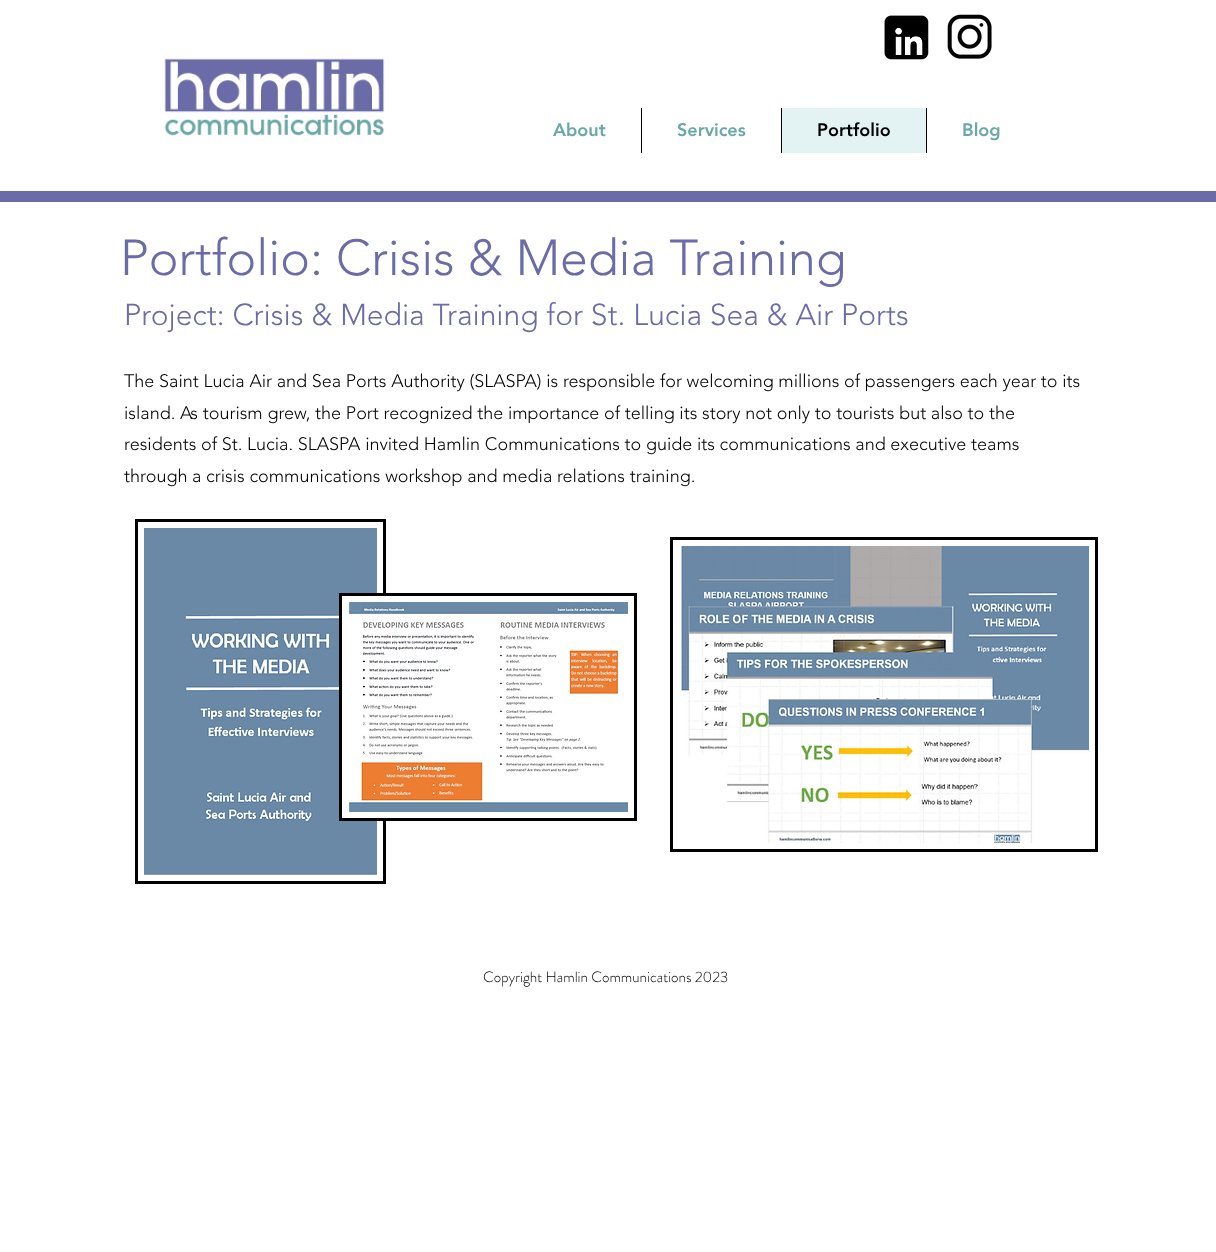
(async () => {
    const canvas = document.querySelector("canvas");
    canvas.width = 1216;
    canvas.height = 1252;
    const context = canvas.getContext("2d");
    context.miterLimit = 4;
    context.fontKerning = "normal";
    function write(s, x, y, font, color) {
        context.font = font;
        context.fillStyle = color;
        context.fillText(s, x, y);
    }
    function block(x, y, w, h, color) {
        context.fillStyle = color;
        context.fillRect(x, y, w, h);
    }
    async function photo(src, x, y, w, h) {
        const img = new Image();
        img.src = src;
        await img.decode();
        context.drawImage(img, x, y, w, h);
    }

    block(0, 0, 1216, 1252, "rgb(255, 255, 255)");
    await photo("media/1.png", 164, 58, 221, 78);
    await photo("media/2.png", 884, 15, 45, 45);
    await photo("media/3.png", 947, 14, 45, 45);
    write("About", 553, 136, "900 18px 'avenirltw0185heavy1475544'", "rgb(106, 167, 167)");
    block(641, 108, 1, 45, "rgb(0, 0, 0)");
    write("Services", 677, 136, "900 18px 'avenirltw0185heavy1475544'", "rgb(106, 167, 167)");
    block(782, 108, 144, 45, "rgb(227, 242, 243)");
    block(781, 108, 1, 45, "rgb(0, 0, 0)");
    write("Portfolio", 817, 136, "900 18px 'avenirltw0185heavy1475544'", "rgb(0, 0, 0)");
    block(926, 108, 1, 45, "rgb(0, 0, 0)");
    write("Blog", 962, 136, "900 18px 'avenirltw0185heavy1475544'", "rgb(106, 167, 167)");
    block(0, 191, 1216, 11, "rgb(106, 107, 167)");
    write("Portfolio: Crisis & Media Training", 120, 275, "300 50px 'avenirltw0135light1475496'", "rgb(106, 107, 167)");
    write("Project: Crisis & Media Training for St. Lucia Sea & Air Ports", 124, 325, "300 30px 'avenirltw0135light1475496'", "rgb(106, 107, 167)");
    write("The Saint Lucia Air and Sea Ports Authority (SLASPA) is responsible for welcoming millions of passengers each year to its", 124, 387, "300 18px 'avenirltw0135light1475496'", "rgb(0, 0, 0)");
    write("island. As tourism grew, the Port recognized the importance of telling its story not only to tourists but also to the", 124, 419, "300 18px 'avenirltw0135light1475496'", "rgb(0, 0, 0)");
    write("residents of St. Lucia. SLASPA invited Hamlin Communications to guide its communications and executive teams", 124, 450, "300 18px 'avenirltw0135light1475496'", "rgb(0, 0, 0)");
    write("through a crisis communications workshop and media relations training.", 124, 482, "300 18px 'avenirltw0135light1475496'", "rgb(0, 0, 0)");
    context.strokeStyle = "rgb(0, 0, 0)";
    context.lineWidth = 3;
    context.strokeRect(136.5, 520.5, 248, 362);
    await photo("media/4.png", 144, 528, 233, 347);
    block(342, 596, 44, 222, "rgb(255, 255, 255)");
    context.strokeRect(340.5, 594.5, 295, 225);
    await photo("media/5.png", 349, 602, 279, 210);
    context.strokeRect(671.5, 538.5, 425, 312);
    await photo("media/6.png", 681, 546, 408, 297);
    write("Copyright Hamlin Communications 2023", 483, 982, "300 15px 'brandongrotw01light'", "rgb(0, 0, 0)");
})();
